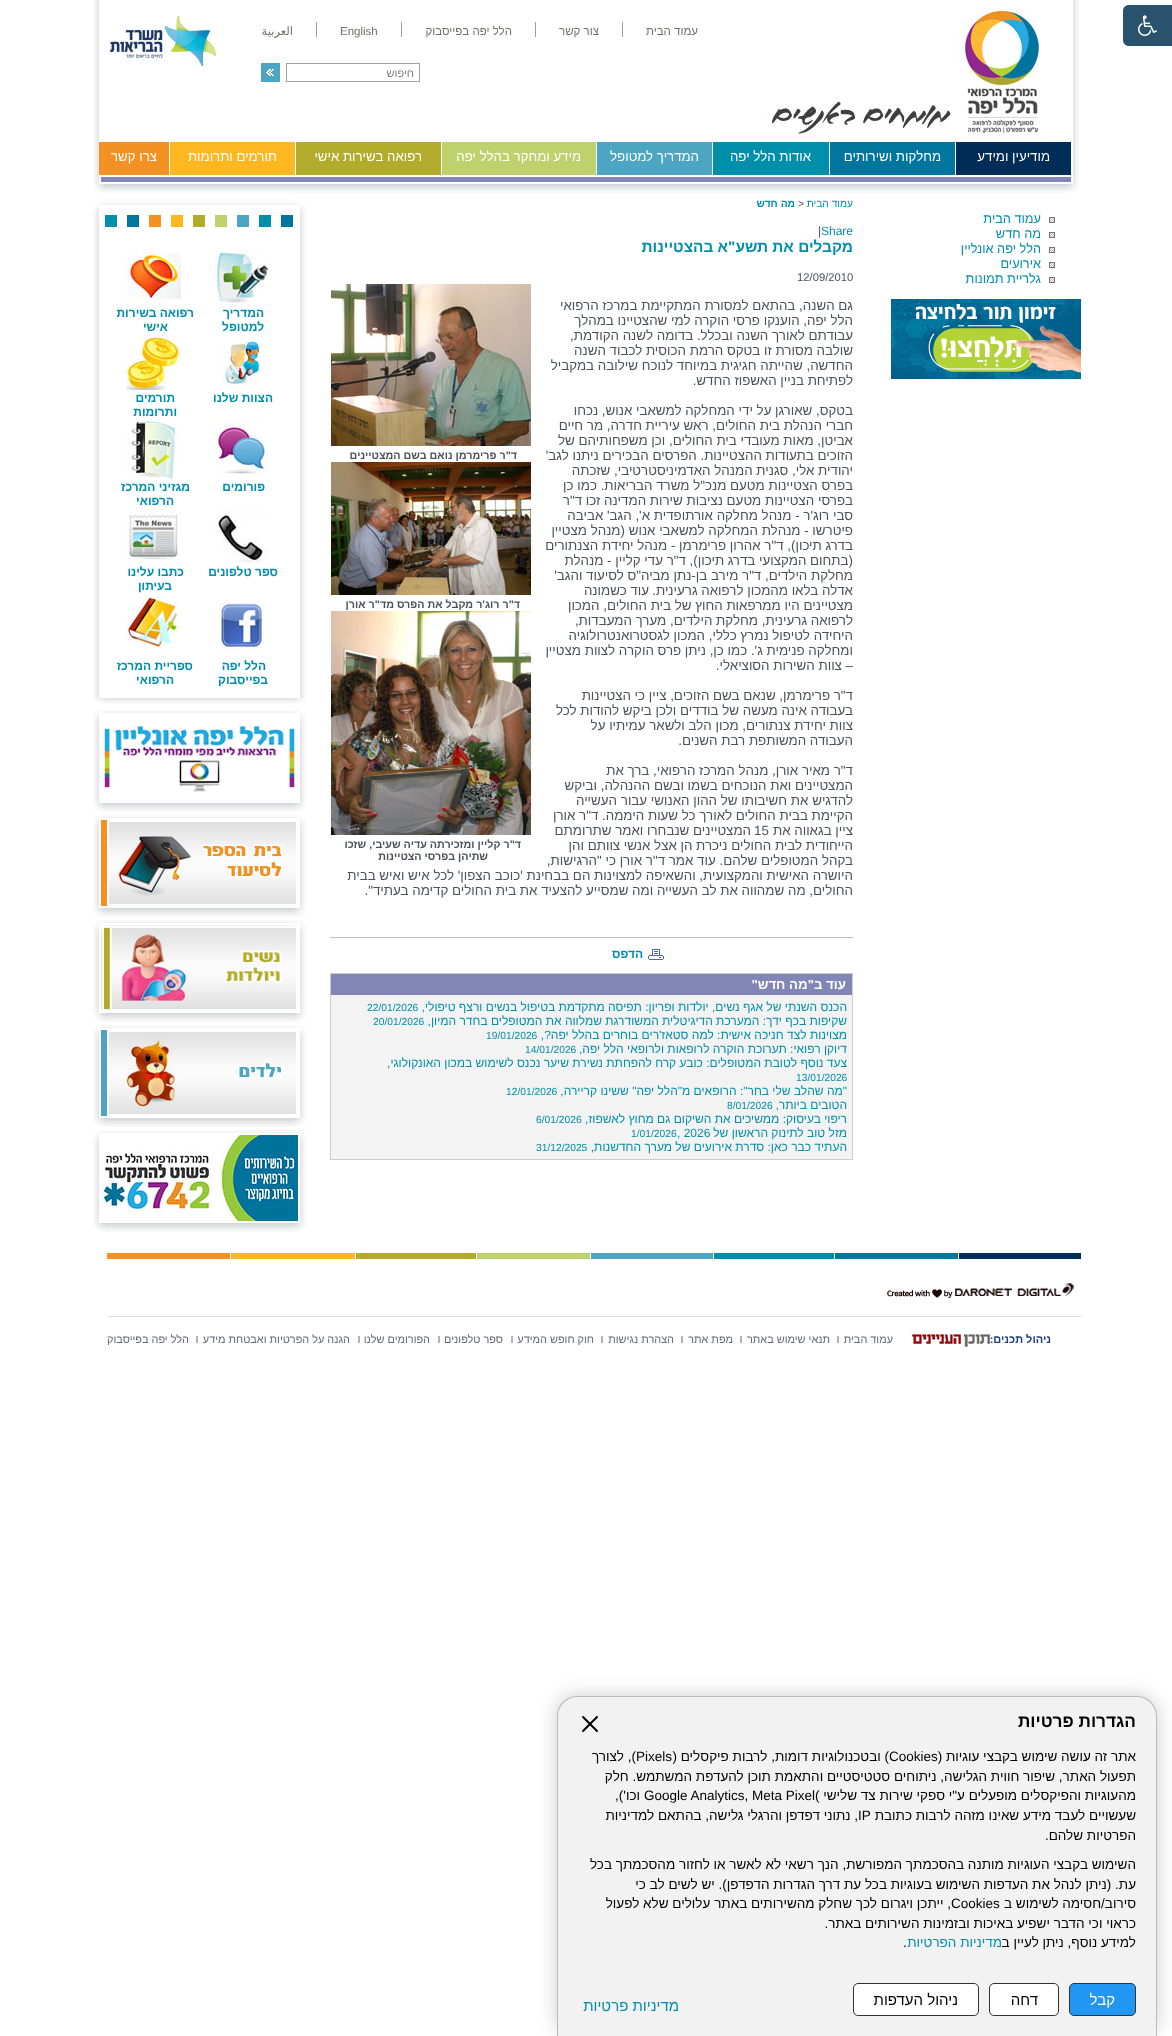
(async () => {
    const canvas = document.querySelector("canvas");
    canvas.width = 1172;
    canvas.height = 2036;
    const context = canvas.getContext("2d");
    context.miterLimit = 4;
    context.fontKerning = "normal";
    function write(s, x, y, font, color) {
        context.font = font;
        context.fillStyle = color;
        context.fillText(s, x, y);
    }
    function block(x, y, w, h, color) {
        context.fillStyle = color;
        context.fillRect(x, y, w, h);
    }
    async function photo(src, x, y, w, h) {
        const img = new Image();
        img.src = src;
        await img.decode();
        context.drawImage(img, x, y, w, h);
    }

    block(0, 0, 1172, 2036, "rgb(255, 255, 255)");
    context.fillStyle = "rgb(41, 83, 108)";
    context.beginPath();
    context.moveTo(1129, 5);
    context.lineTo(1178, 5);
    context.lineTo(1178, 46);
    context.lineTo(1129, 46);
    context.bezierCurveTo(1125.5, 46, 1123, 43.5, 1123, 40);
    context.lineTo(1123, 11);
    context.bezierCurveTo(1123, 7.5, 1125.5, 5, 1129, 5);
    context.closePath();
    context.fill();
    await photo("media/1.png", 1138, 15, 19, 21);
    await photo("media/2.png", 93, 0, 986, 193);
    await photo("media/3.png", 767, 8, 272, 128);
    context.direction = "rtl";
    write("עמוד הבית", 698, 35, "11.5px Liberation Sans", "rgb(113, 112, 108)");
    block(622, 22, 1, 15, "rgb(160, 159, 153)");
    write("צור קשר", 599, 35, "11.5px Liberation Sans", "rgb(113, 112, 108)");
    block(535, 22, 1, 15, "rgb(160, 159, 153)");
    write("הלל יפה בפייסבוק", 512, 35, "11.5px Liberation Sans", "rgb(113, 112, 108)");
    block(401, 22, 1, 15, "rgb(160, 159, 153)");
    context.direction = "ltr";
    write("English", 340, 35, "11.5px Liberation Sans", "rgb(113, 112, 108)");
    block(316, 22, 1, 15, "rgb(160, 159, 153)");
    context.direction = "rtl";
    write("العربية", 293, 35, "11.5px DejaVu Sans", "rgb(113, 112, 108)");
    context.strokeStyle = "rgb(160, 160, 160)";
    context.strokeRect(286.5, 63.5, 133, 18);
    write("חיפוש", 414, 77, "11px Liberation Sans", "rgb(125, 125, 126)");
    await photo("media/4.png", 261, 63, 19, 19);
    block(101, 177, 970, 5, "rgb(130, 134, 182)");
    block(956, 142, 115, 33, "rgb(0, 45, 87)");
    write("מודיעין ומידע", 1050, 161, "13.25px Liberation Sans", "rgb(255, 255, 255)");
    block(830, 142, 125, 33, "rgb(0, 117, 158)");
    write("מחלקות ושירותים", 941, 161, "13.25px Liberation Sans", "rgb(255, 255, 255)");
    block(713, 142, 116, 33, "rgb(0, 143, 170)");
    write("אודות הלל יפה", 811, 161, "13.25px Liberation Sans", "rgb(255, 255, 255)");
    block(597, 142, 115, 33, "rgb(76, 166, 193)");
    write("המדריך למטופל", 699, 161, "13.25px Liberation Sans", "rgb(255, 255, 255)");
    block(442, 142, 154, 33, "rgb(190, 209, 109)");
    write("מידע ומחקר בהלל יפה", 581, 161, "13.25px Liberation Sans", "rgb(255, 255, 255)");
    block(296, 142, 145, 33, "rgb(178, 171, 44)");
    write("רפואה בשירות אישי", 422, 161, "13.25px Liberation Sans", "rgb(255, 255, 255)");
    block(170, 142, 125, 33, "rgb(253, 183, 33)");
    write("תורמים ותרומות", 277, 161, "13.25px Liberation Sans", "rgb(255, 255, 255)");
    block(99, 142, 70, 33, "rgb(243, 145, 34)");
    write("צרו קשר", 157, 161, "13.25px Liberation Sans", "rgb(255, 255, 255)");
    await photo("media/5.png", 1049, 217, 6, 6);
    write("עמוד הבית", 1041, 223, "12.75px Liberation Sans", "rgb(0, 143, 170)");
    await photo("media/5.png", 1049, 232, 6, 6);
    write("מה חדש", 1041, 238, "12.75px Liberation Sans", "rgb(0, 143, 170)");
    await photo("media/5.png", 1049, 247, 6, 6);
    write("הלל יפה אונליין", 1041, 253, "12.75px Liberation Sans", "rgb(0, 143, 170)");
    await photo("media/5.png", 1049, 262, 6, 6);
    write("אירועים", 1041, 268, "12.75px Liberation Sans", "rgb(0, 143, 170)");
    await photo("media/5.png", 1049, 277, 6, 6);
    write("גלריית תמונות", 1041, 283, "12.75px Liberation Sans", "rgb(0, 143, 170)");
    await photo("media/6.png", 891, 299, 190, 80);
    write("עמוד הבית", 853, 207, "10.25px Liberation Sans", "rgb(0, 143, 170)");
    context.direction = "ltr";
    write(">", 798, 207, "10.25px Liberation Sans", "rgb(77, 81, 91)");
    context.direction = "rtl";
    write("מה חדש", 795, 207, "bold 10.25px Liberation Sans", "rgb(0, 143, 170)");
    context.direction = "ltr";
    write("Share", 821, 235, "12px Liberation Sans", "rgb(0, 143, 170)");
    write("|", 818, 235, "12px Liberation Sans", "rgb(77, 81, 91)");
    context.direction = "rtl";
    write("מקבלים את תשע\"א בהצטיינות", 853, 252, "bold 15.4px Liberation Sans", "rgb(0, 143, 170)");
    context.direction = "ltr";
    write("12/09/2010", 797, 281, "11.25px Liberation Sans", "rgb(77, 81, 91)");
    context.direction = "rtl";
    write("גם השנה, בהתאם למסורת המתקיימת במרכז הרפואי", 853, 310, "13.35px Liberation Sans", "rgb(77, 81, 91)");
    write("הלל יפה, הוענקו פרסי הוקרה למי שהצטיינו במהלך", 853, 325, "13.35px Liberation Sans", "rgb(77, 81, 91)");
    write("עבודתם לאורך השנה ובכלל. בדומה לשנה הקודמת,", 853, 340, "13.35px Liberation Sans", "rgb(77, 81, 91)");
    write("שולבה מסורת זו בטקס הרמת הכוסית לכבוד השנה", 853, 355, "13.35px Liberation Sans", "rgb(77, 81, 91)");
    write("החדשה, שהייתה חגיגית במיוחד לנוכח שילובה במקביל", 853, 370, "13.35px Liberation Sans", "rgb(77, 81, 91)");
    write("לפתיחת בניין האשפוז החדש.", 853, 385, "13.35px Liberation Sans", "rgb(77, 81, 91)");
    write("בטקס, שאורגן על ידי המחלקה למשאבי אנוש, נכחו", 853, 415, "13.35px Liberation Sans", "rgb(77, 81, 91)");
    write("חברי הנהלת בית החולים, ראש עיריית חדרה, מר חיים", 853, 430, "13.35px Liberation Sans", "rgb(77, 81, 91)");
    write("אביטן, מאות מעובדי בית החולים, וכן משפחותיהם של", 853, 445, "13.35px Liberation Sans", "rgb(77, 81, 91)");
    write("הזוכים בתעודות ההצטיינות. הפרסים הבכירים ניתנו לגב'", 853, 460, "13.35px Liberation Sans", "rgb(77, 81, 91)");
    write("יהודית אלי, סגנית המנהל האדמיניסטרטיבי, שזכתה", 853, 475, "13.35px Liberation Sans", "rgb(77, 81, 91)");
    write("בפרס הצטיינות מטעם מנכ\"ל משרד הבריאות. כמו כן", 853, 490, "13.35px Liberation Sans", "rgb(77, 81, 91)");
    write("בפרסי הצטיינות מטעם נציבות שירות המדינה זכו ד\"ר", 853, 505, "13.35px Liberation Sans", "rgb(77, 81, 91)");
    write("סבי רוג'ר - מנהל מחלקה אורתופדית א', הגב' אביבה", 853, 520, "13.35px Liberation Sans", "rgb(77, 81, 91)");
    write("פיטרשו - מנהלת המחלקה למשאבי אנוש (מנהל מצטיין", 853, 535, "13.35px Liberation Sans", "rgb(77, 81, 91)");
    write("בדרג תיכון), ד\"ר אהרון פרימרמן - מנהל יחידת הצנתורים", 853, 550, "13.35px Liberation Sans", "rgb(77, 81, 91)");
    write("(בתחום המקצועי בדרג תיכון), ד\"ר עדי קליין - מנהלת", 853, 565, "13.35px Liberation Sans", "rgb(77, 81, 91)");
    write("מחלקת הילדים, ד\"ר מירב בן-נתן מביה\"ס לסיעוד והגב'", 853, 580, "13.35px Liberation Sans", "rgb(77, 81, 91)");
    write("אדלה בלאו מהמכון לרפואה גרעינית.", 853, 595, "13.35px Liberation Sans", "rgb(77, 81, 91)");
    write("עוד כשמונה", 649, 595, "13.35px Liberation Sans", "rgb(77, 81, 91)");
    write("מצטיינים היו ממרפאות החוץ של בית החולים, המכון", 853, 610, "13.35px Liberation Sans", "rgb(77, 81, 91)");
    write("לרפואה גרעינית, מחלקת הילדים, מערך המעבדות,", 853, 625, "13.35px Liberation Sans", "rgb(77, 81, 91)");
    write("היחידה לטיפול נמרץ כללי, המכון לגסטרואנטרולוגיה", 853, 640, "13.35px Liberation Sans", "rgb(77, 81, 91)");
    write("ומחלקה פנימית ג'. כמו כן, ניתן פרס הוקרה לצוות מצטיין", 853, 655, "13.35px Liberation Sans", "rgb(77, 81, 91)");
    write("– צוות השירות הסוציאלי.", 853, 670, "13.35px Liberation Sans", "rgb(77, 81, 91)");
    await photo("media/7.png", 331, 284, 200, 162);
    write("ד\"ר פרימרמן נואם בשם המצטיינים", 517, 459, "bold 10.75px Liberation Sans", "rgb(77, 81, 91)");
    await photo("media/8.png", 331, 462, 200, 133);
    write("ד\"ר רוג'ר מקבל את הפרס מד\"ר אורן", 520, 608, "bold 10.75px Liberation Sans", "rgb(77, 81, 91)");
    await photo("media/9.png", 331, 611, 200, 224);
    write("ד\"ר קליין ומזכירתה עדיה שעיבי, שזכו", 521, 848, "bold 10.75px Liberation Sans", "rgb(77, 81, 91)");
    write("שתיהן בפרסי הצטיינות", 488, 860, "bold 10.75px Liberation Sans", "rgb(77, 81, 91)");
    write("ד\"ר פרימרמן, שנאם בשם הזוכים, ציין כי הצטיינות", 853, 700, "13.35px Liberation Sans", "rgb(77, 81, 91)");
    write("בעבודה אינה מעשה של בודדים ולכן ביקש להודות לכל", 853, 715, "13.35px Liberation Sans", "rgb(77, 81, 91)");
    write("צוות יחידת צנתורים, מכון הלב ולשאר עמיתיו על", 853, 730, "13.35px Liberation Sans", "rgb(77, 81, 91)");
    write("העבודה המשותפת רבת השנים.", 853, 745, "13.35px Liberation Sans", "rgb(77, 81, 91)");
    write("ד\"ר מאיר אורן, מנהל המרכז הרפואי, ברך את", 853, 775, "13.35px Liberation Sans", "rgb(77, 81, 91)");
    write("המצטיינים ואת הנוכחים בשמו ובשם ההנהלה, וביקש", 853, 790, "13.35px Liberation Sans", "rgb(77, 81, 91)");
    write("להדגיש את חשיבותו של ההון האנושי עבור העשייה", 853, 805, "13.35px Liberation Sans", "rgb(77, 81, 91)");
    write("הקיימת בבית החולים לאורך כל שעות היממה. ד\"ר אורן", 853, 820, "13.35px Liberation Sans", "rgb(77, 81, 91)");
    write("ציין בגאווה את", 853, 835, "13.35px Liberation Sans", "rgb(77, 81, 91)");
    context.direction = "ltr";
    write("15", 754, 835, "13.35px Liberation Sans", "rgb(77, 81, 91)");
    context.direction = "rtl";
    write("המצטיינים שנבחרו ואמר שתרומתם", 751, 835, "13.35px Liberation Sans", "rgb(77, 81, 91)");
    write("הייחודית לבית החולים ניכרת הן אצל אנשי צוותם והן", 853, 850, "13.35px Liberation Sans", "rgb(77, 81, 91)");
    write("בקהל המטופלים שלהם. עוד אמר ד\"ר אורן כי \"הרגישות,", 853, 865, "13.35px Liberation Sans", "rgb(77, 81, 91)");
    write("היושרה האישית והמקצועית, והשאיפה למצוינות הם בבחינת 'כוכב הצפון' לכל איש ואיש בבית", 853, 880, "13.35px Liberation Sans", "rgb(77, 81, 91)");
    write("החולים, מה שמהווה את לב העשייה ומה שמסייע להצעיד את בית החולים קדימה בעתיד\".", 853, 895, "13.35px Liberation Sans", "rgb(77, 81, 91)");
    block(330, 937, 523, 1, "rgb(188, 188, 188)");
    await photo("media/10.png", 648, 949, 16, 11);
    write("הדפס", 643, 958, "bold 12px Liberation Sans", "rgb(0, 143, 170)");
    context.strokeStyle = "rgb(204, 204, 204)";
    context.strokeRect(330.5, 973.5, 522, 186);
    block(331, 974, 521, 21, "rgb(130, 134, 182)");
    write("עוד ב\"מה חדש\"", 846, 989, "bold 13.25px Liberation Sans", "rgb(255, 255, 255)");
    block(331, 995, 521, 164, "rgb(243, 243, 243)");
    write("הכנס השנתי של אגף נשים, יולדות ופריון: תפיסה מתקדמת בטיפול בנשים ורצף טיפולי,", 847, 1011, "12px Liberation Sans", "rgb(0, 143, 170)");
    context.direction = "ltr";
    write("22/01/2026", 367, 1011, "10.25px Liberation Sans", "rgb(0, 143, 170)");
    context.direction = "rtl";
    write("שקיפות בכף ידך: המערכת הדיגיטלית המשודרגת שמלווה את המטופלים בחדר המיון,", 847, 1025, "12px Liberation Sans", "rgb(0, 143, 170)");
    context.direction = "ltr";
    write("20/01/2026", 373, 1025, "10.25px Liberation Sans", "rgb(0, 143, 170)");
    context.direction = "rtl";
    write("מצוינות לצד חניכה אישית: למה סטאז'רים בוחרים בהלל יפה?,", 847, 1039, "12px Liberation Sans", "rgb(0, 143, 170)");
    context.direction = "ltr";
    write("19/01/2026", 486, 1039, "10.25px Liberation Sans", "rgb(0, 143, 170)");
    context.direction = "rtl";
    write("דיוקן רפואי: תערוכת הוקרה לרופאות ולרופאי הלל יפה,", 847, 1053, "12px Liberation Sans", "rgb(0, 143, 170)");
    context.direction = "ltr";
    write("14/01/2026", 525, 1053, "10.25px Liberation Sans", "rgb(0, 143, 170)");
    context.direction = "rtl";
    write("צעד נוסף לטובת המטופלים: כובע קרח להפחתת נשירת שיער נכנס לשימוש במכון האונקולוגי,", 847, 1067, "12px Liberation Sans", "rgb(0, 143, 170)");
    context.direction = "ltr";
    write("13/01/2026", 796, 1081, "10.25px Liberation Sans", "rgb(0, 143, 170)");
    context.direction = "rtl";
    write("\"מה שהלב שלי בחר\": הרופאים מ\"הלל יפה\" ששינו קריירה,", 847, 1095, "12px Liberation Sans", "rgb(0, 143, 170)");
    context.direction = "ltr";
    write("12/01/2026", 506, 1095, "10.25px Liberation Sans", "rgb(0, 143, 170)");
    context.direction = "rtl";
    write("הטובים ביותר,", 847, 1109, "12px Liberation Sans", "rgb(0, 143, 170)");
    context.direction = "ltr";
    write("8/01/2026", 727, 1109, "10.25px Liberation Sans", "rgb(0, 143, 170)");
    context.direction = "rtl";
    write("ריפוי בעיסוק: ממשיכים את השיקום גם מחוץ לאשפוז,", 847, 1123, "12px Liberation Sans", "rgb(0, 143, 170)");
    context.direction = "ltr";
    write("6/01/2026", 536, 1123, "10.25px Liberation Sans", "rgb(0, 143, 170)");
    context.direction = "rtl";
    write("מזל טוב לתינוק הראשון של", 847, 1137, "12px Liberation Sans", "rgb(0, 143, 170)");
    context.direction = "ltr";
    write(", 2026", 677, 1137, "12px Liberation Sans", "rgb(0, 143, 170)");
    write("1/01/2026", 631, 1137, "10.25px Liberation Sans", "rgb(0, 143, 170)");
    context.direction = "rtl";
    write("העתיד כבר כאן: סדרת אירועים של מערך החדשנות,", 847, 1151, "12px Liberation Sans", "rgb(0, 143, 170)");
    context.direction = "ltr";
    write("31/12/2025", 536, 1151, "10.25px Liberation Sans", "rgb(0, 143, 170)");
    await photo("media/11.png", 93, 698, 213, 6);
    await photo("media/12.png", 93, 198, 213, 500);
    await photo("media/13.png", 214, 250, 55, 55);
    await photo("media/14.png", 126, 250, 55, 55);
    context.direction = "rtl";
    write("המדריך", 264, 317, "bold 12px Liberation Sans", "rgb(0, 143, 170)");
    write("למטופל", 264, 331, "bold 12px Liberation Sans", "rgb(0, 143, 170)");
    write("רפואה בשירות", 194, 317, "bold 12px Liberation Sans", "rgb(0, 143, 170)");
    write("אישי", 168, 331, "bold 12px Liberation Sans", "rgb(0, 143, 170)");
    await photo("media/15.png", 222, 341, 38, 45);
    await photo("media/16.png", 126, 335, 55, 55);
    write("הצוות שלנו", 273, 402, "bold 12px Liberation Sans", "rgb(0, 143, 170)");
    write("תורמים", 175, 402, "bold 12px Liberation Sans", "rgb(0, 143, 170)");
    write("ותרומות", 177, 416, "bold 12px Liberation Sans", "rgb(0, 143, 170)");
    await photo("media/17.png", 214, 420, 55, 55);
    await photo("media/18.png", 125, 420, 56, 59);
    write("פורומים", 265, 491, "bold 12px Liberation Sans", "rgb(0, 143, 170)");
    write("מגזיני המרכז", 190, 491, "bold 12px Liberation Sans", "rgb(0, 143, 170)");
    write("הרפואי", 174, 505, "bold 12px Liberation Sans", "rgb(0, 143, 170)");
    await photo("media/19.png", 214, 509, 55, 55);
    await photo("media/20.png", 126, 509, 55, 55);
    write("ספר טלפונים", 278, 576, "bold 12px Liberation Sans", "rgb(0, 143, 170)");
    write("כתבו עלינו", 184, 576, "bold 12px Liberation Sans", "rgb(0, 143, 170)");
    write("בעיתון", 172, 590, "bold 12px Liberation Sans", "rgb(0, 143, 170)");
    await photo("media/21.png", 219, 600, 47, 52);
    await photo("media/22.png", 126, 594, 55, 55);
    write("הלל יפה", 266, 670, "bold 12px Liberation Sans", "rgb(0, 143, 170)");
    write("בפייסבוק", 268, 684, "bold 12px Liberation Sans", "rgb(0, 143, 170)");
    write("ספריית המרכז", 193, 670, "bold 12px Liberation Sans", "rgb(0, 143, 170)");
    write("הרפואי", 174, 684, "bold 12px Liberation Sans", "rgb(0, 143, 170)");
    await photo("media/23.png", 93, 710, 213, 102);
    await photo("media/24.png", 104, 726, 192, 66);
    await photo("media/23.png", 93, 815, 213, 102);
    await photo("media/25.png", 101, 820, 195, 86);
    await photo("media/23.png", 93, 920, 213, 102);
    await photo("media/26.png", 101, 925, 197, 86);
    await photo("media/23.png", 93, 1025, 213, 102);
    await photo("media/27.png", 101, 1030, 195, 86);
    await photo("media/23.png", 93, 1130, 213, 102);
    await photo("media/28.png", 101, 1135, 197, 86);
    await photo("media/29.png", 107, 1253, 974, 64);
    await photo("media/30.png", 887, 1283, 187, 15);
    await photo("media/31.png", 911, 1334, 80, 13);
    write("ניהול תכנים:", 1051, 1343, "bold 11px Liberation Sans", "rgb(31, 63, 122)");
    write("עמוד הבית", 893, 1343, "10.9px Liberation Sans", "rgb(98, 104, 117)");
    block(837, 1336, 2, 7, "rgb(179, 179, 179)");
    write("תנאי שימוש באתר", 830, 1343, "10.9px Liberation Sans", "rgb(98, 104, 117)");
    block(740, 1336, 2, 7, "rgb(179, 179, 179)");
    write("מפת אתר", 733, 1343, "10.9px Liberation Sans", "rgb(98, 104, 117)");
    block(681, 1336, 2, 7, "rgb(179, 179, 179)");
    write("הצהרת נגישות", 674, 1343, "10.9px Liberation Sans", "rgb(98, 104, 117)");
    block(601, 1336, 2, 7, "rgb(179, 179, 179)");
    write("חוק חופש המידע", 594, 1343, "10.9px Liberation Sans", "rgb(98, 104, 117)");
    block(511, 1336, 2, 7, "rgb(179, 179, 179)");
    write("ספר טלפונים", 503, 1343, "10.9px Liberation Sans", "rgb(98, 104, 117)");
    block(438, 1336, 2, 7, "rgb(179, 179, 179)");
    write("הפורומים שלנו", 430, 1343, "10.9px Liberation Sans", "rgb(98, 104, 117)");
    block(358, 1336, 2, 7, "rgb(179, 179, 179)");
    write("הגנה על הפרטיות ואבטחת מידע", 350, 1343, "10.9px Liberation Sans", "rgb(98, 104, 117)");
    block(196, 1336, 2, 7, "rgb(179, 179, 179)");
    write("הלל יפה בפייסבוק", 189, 1343, "10.9px Liberation Sans", "rgb(98, 104, 117)");
    context.fillStyle = "rgba(0, 0, 0, 0.2)";
    context.filter = "blur(10px)";
    context.beginPath();
    context.roundRect(557, 1696, 600, 340, 20);
    context.fill();
    context.filter = "none";
    context.fillStyle = "rgb(242, 242, 242)";
    context.beginPath();
    context.roundRect(557, 1696, 600, 340, [20, 20, 0, 0]);
    context.fill();
    context.fillStyle = "rgb(187, 187, 187)";
    context.beginPath();
    context.moveTo(577, 1696);
    context.lineTo(1137, 1696);
    context.bezierCurveTo(1148, 1696, 1157, 1705, 1157, 1716);
    context.lineTo(1157, 2036);
    context.lineTo(557, 2036);
    context.lineTo(557, 1716);
    context.bezierCurveTo(557, 1705, 566, 1696, 577, 1696);
    context.closePath();
    context.moveTo(577, 1697);
    context.lineTo(1137, 1697);
    context.bezierCurveTo(1147, 1697, 1156, 1706, 1156, 1716);
    context.lineTo(1156, 2036);
    context.lineTo(558, 2036);
    context.lineTo(558, 1716);
    context.bezierCurveTo(558, 1706, 567, 1697, 577, 1697);
    context.closePath();
    context.fill("evenodd");
    write("הגדרות פרטיות", 1136, 1727, "bold 17.25px Liberation Sans", "rgb(0, 0, 0)");
    context.beginPath();
    context.moveTo(583, 1717);
    context.lineTo(597, 1731);
    context.moveTo(583, 1731);
    context.lineTo(597, 1717);
    context.strokeStyle = "rgb(0, 0, 0)";
    context.lineWidth = 2;
    context.lineCap = "round";
    context.lineJoin = "round";
    context.stroke();
    context.direction = "ltr";
    write("Cookies", 889, 1761, "13.5px Liberation Sans", "rgb(0, 0, 0)");
    context.direction = "rtl";
    write("אתר זה עושה שימוש בקבצי עוגיות (", 1136, 1761, "13.5px Liberation Sans", "rgb(0, 0, 0)");
    write(") ובטכנולוגיות דומות, לרבות פיקסלים (", 889, 1761, "13.5px Liberation Sans", "rgb(0, 0, 0)");
    context.direction = "ltr";
    write("Pixels", 636, 1761, "13.5px Liberation Sans", "rgb(0, 0, 0)");
    context.direction = "rtl";
    write("), לצורך", 636, 1761, "13.5px Liberation Sans", "rgb(0, 0, 0)");
    write("תפעול האתר, שיפור חווית הגלישה, ניתוחים סטטיסטיים והתאמת תוכן להעדפת המשתמש. חלק", 1136, 1781, "13.5px Liberation Sans", "rgb(0, 0, 0)");
    write("מהעוגיות והפיקסלים מופעלים ע\"י ספקי שירות צד שלישי", 1136, 1800, "13.5px Liberation Sans", "rgb(0, 0, 0)");
    context.direction = "ltr";
    write("Google Analytics, Meta Pixel(", 644, 1800, "13.5px Liberation Sans", "rgb(0, 0, 0)");
    context.direction = "rtl";
    write("וכו'),", 640, 1800, "13.5px Liberation Sans", "rgb(0, 0, 0)");
    write("שעשויים לעבד מידע שאינו מזהה לרבות כתובת", 1136, 1820, "13.5px Liberation Sans", "rgb(0, 0, 0)");
    context.direction = "ltr";
    write("IP", 858, 1820, "13.5px Liberation Sans", "rgb(0, 0, 0)");
    context.direction = "rtl";
    write(", נתוני דפדפן והרגלי גלישה, בהתאם למדיניות", 858, 1820, "13.5px Liberation Sans", "rgb(0, 0, 0)");
    write("הפרטיות שלהם.", 1136, 1840, "13.5px Liberation Sans", "rgb(0, 0, 0)");
    write("השימוש בקבצי העוגיות מותנה בהסכמתך המפורשת, הנך רשאי לא לאשר או לחזור מהסכמתך בכל", 1136, 1869, "13.5px Liberation Sans", "rgb(0, 0, 0)");
    write("עת. (ניתן לנהל את העדפות השימוש בעוגיות בכל עת דרך הגדרות הדפדפן). יש לשים לב כי", 1136, 1889, "13.5px Liberation Sans", "rgb(0, 0, 0)");
    write("סירוב/חסימה לשימוש ב", 1136, 1908, "13.5px Liberation Sans", "rgb(0, 0, 0)");
    context.direction = "ltr";
    write("Cookies", 951, 1908, "13.5px Liberation Sans", "rgb(0, 0, 0)");
    context.direction = "rtl";
    write(", ייתכן ויגרום לכך שחלק מהשירותים באתר עלולים שלא לפעול", 951, 1908, "13.5px Liberation Sans", "rgb(0, 0, 0)");
    write("כראוי וכי הדבר ישפיע באיכות ובזמינות השירותים באתר.", 1136, 1928, "13.5px Liberation Sans", "rgb(0, 0, 0)");
    write("למידע נוסף, ניתן לעיין ב", 1136, 1947, "13.5px Liberation Sans", "rgb(0, 0, 0)");
    write("מדיניות הפרטיות", 1002, 1947, "13.5px Liberation Sans", "rgb(0, 143, 170)");
    context.direction = "ltr";
    write(".", 903, 1947, "13.5px Liberation Sans", "rgb(0, 0, 0)");
    context.fillStyle = "rgb(33, 150, 243)";
    context.beginPath();
    context.roundRect(1069.5, 1983.5, 66, 32, 4.5);
    context.fill();
    context.strokeStyle = "rgb(51, 51, 51)";
    context.lineWidth = 1;
    context.lineJoin = "miter";
    context.stroke();
    context.direction = "rtl";
    write("קבל", 1115, 2005, "15px Liberation Sans", "rgb(255, 255, 255)");
    context.beginPath();
    context.roundRect(989.5, 1983.5, 69, 32, 4.5);
    context.fill();
    context.stroke();
    write("דחה", 1038, 2005, "15px Liberation Sans", "rgb(0, 0, 0)");
    context.fillStyle = "rgb(255, 255, 255)";
    context.beginPath();
    context.roundRect(853.5, 1983.5, 125, 32, 4.5);
    context.fill();
    context.stroke();
    write("ניהול העדפות", 958, 2005, "15px Liberation Sans", "rgb(0, 0, 0)");
    write("מדיניות פרטיות", 679, 2011, "15px Liberation Sans", "rgb(0, 143, 170)");
})();
